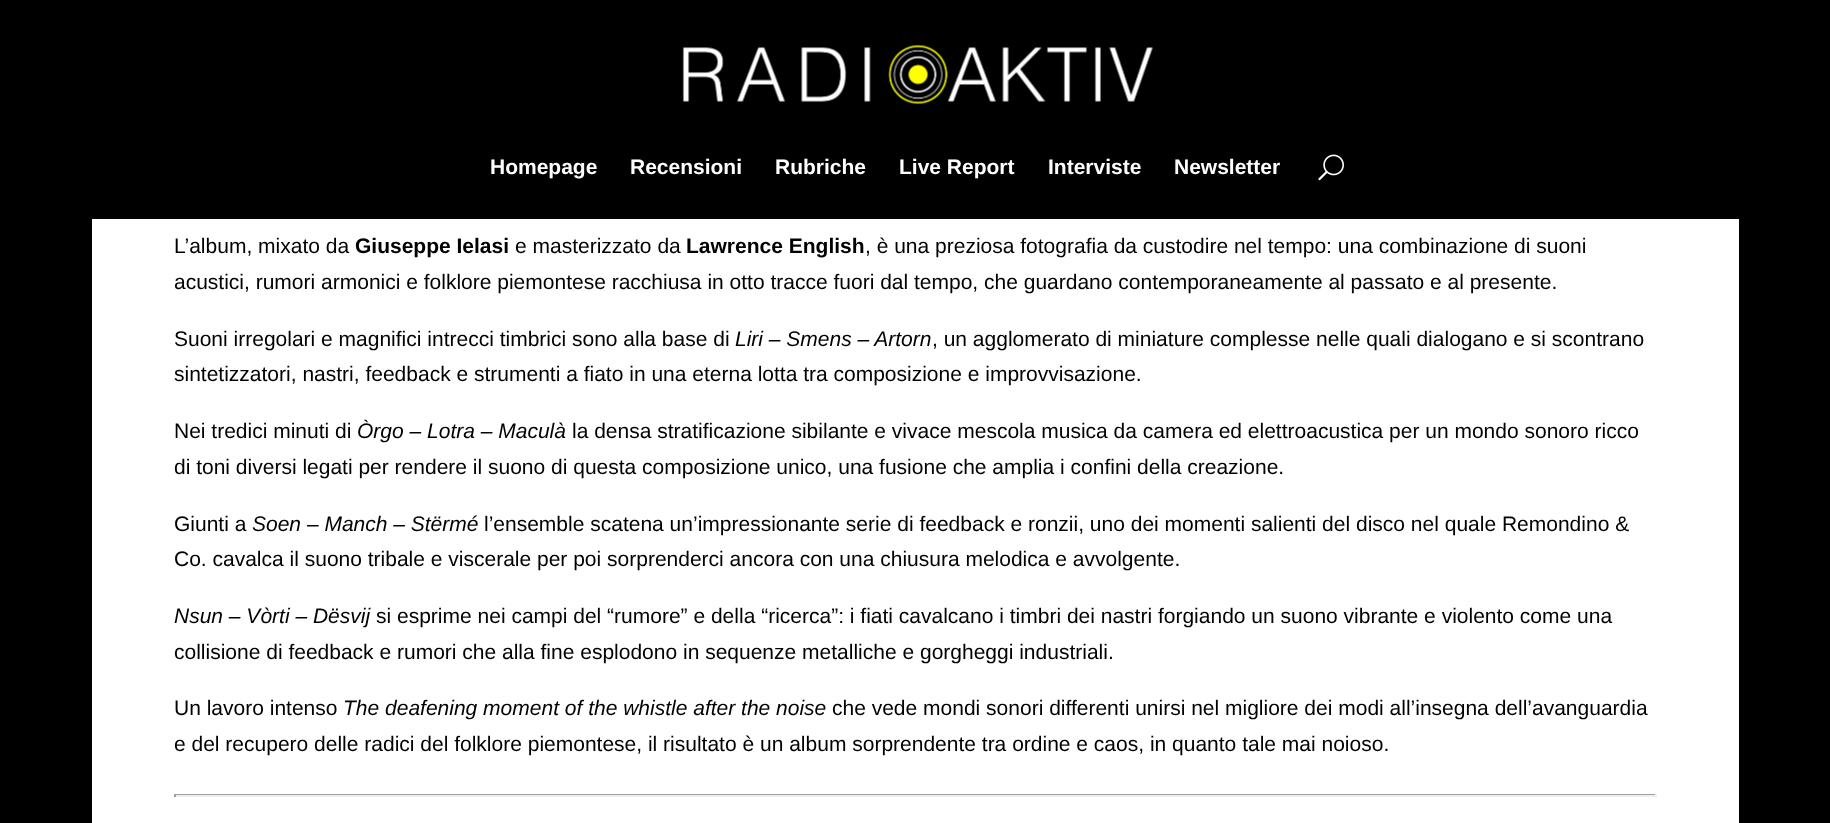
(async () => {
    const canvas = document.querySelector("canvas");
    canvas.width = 1830;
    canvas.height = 823;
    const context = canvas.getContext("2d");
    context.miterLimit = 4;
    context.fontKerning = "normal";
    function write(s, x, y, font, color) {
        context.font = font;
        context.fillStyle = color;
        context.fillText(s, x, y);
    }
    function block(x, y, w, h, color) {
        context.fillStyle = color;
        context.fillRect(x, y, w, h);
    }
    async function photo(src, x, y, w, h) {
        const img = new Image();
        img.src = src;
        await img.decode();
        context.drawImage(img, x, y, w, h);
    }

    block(0, 0, 1830, 823, "rgb(0, 0, 0)");
    await photo("media/1.png", 682, 44, 471, 61);
    write("Homepage", 490, 174, "bold 21px Liberation Sans", "rgb(255, 255, 255)");
    write("Recensioni", 630, 174, "bold 21px Liberation Sans", "rgb(255, 255, 255)");
    write("Rubriche", 775, 174, "bold 21px Liberation Sans", "rgb(255, 255, 255)");
    write("Live Report", 899, 174, "bold 21px Liberation Sans", "rgb(255, 255, 255)");
    write("Interviste", 1048, 174, "bold 21px Liberation Sans", "rgb(255, 255, 255)");
    write("Newsletter", 1174, 174, "bold 21px Liberation Sans", "rgb(255, 255, 255)");
    await photo("media/2.png", 1318, 154, 26, 27);
    block(92, 219, 1647, 604, "rgb(255, 255, 255)");
    write("L’album, mixato da", 174, 253, "21px Liberation Sans", "rgb(0, 0, 0)");
    write("Giuseppe Ielasi", 355, 253, "bold 21px Liberation Sans", "rgb(0, 0, 0)");
    write("e masterizzato da", 515, 253, "21px Liberation Sans", "rgb(0, 0, 0)");
    write("Lawrence English", 686, 253, "bold 21px Liberation Sans", "rgb(0, 0, 0)");
    write(", è una preziosa fotografia da custodire nel tempo: una combinazione di suoni", 865, 253, "21px Liberation Sans", "rgb(0, 0, 0)");
    write("acustici, rumori armonici e folklore piemontese racchiusa in otto tracce fuori dal tempo, che guardano contemporaneamente al passato e al presente.", 174, 289, "21px Liberation Sans", "rgb(0, 0, 0)");
    write("Suoni irregolari e magnifici intrecci timbrici sono alla base di", 174, 346, "21px Liberation Sans", "rgb(0, 0, 0)");
    write("Liri – Smens – Artorn", 735, 346, "italic 21px Liberation Sans", "rgb(0, 0, 0)");
    write(", un agglomerato di miniature complesse nelle quali dialogano e si scontrano", 932, 346, "21px Liberation Sans", "rgb(0, 0, 0)");
    write("sintetizzatori, nastri, feedback e strumenti a fiato in una eterna lotta tra composizione e improvvisazione.", 174, 381, "21px Liberation Sans", "rgb(0, 0, 0)");
    write("Nei tredici minuti di", 174, 438, "21px Liberation Sans", "rgb(0, 0, 0)");
    write("Òrgo – Lotra – Maculà", 357, 438, "italic 21px Liberation Sans", "rgb(0, 0, 0)");
    write("la densa stratificazione sibilante e vivace mescola musica da camera ed elettroacustica per un mondo sonoro ricco", 572, 438, "21px Liberation Sans", "rgb(0, 0, 0)");
    write("di toni diversi legati per rendere il suono di questa composizione unico, una fusione che amplia i confini della creazione.", 174, 474, "21px Liberation Sans", "rgb(0, 0, 0)");
    write("Giunti a", 174, 531, "21px Liberation Sans", "rgb(0, 0, 0)");
    write("Soen – Manch – Stërmé", 252, 531, "italic 21px Liberation Sans", "rgb(0, 0, 0)");
    write("l’ensemble scatena un’impressionante serie di feedback e ronzii, uno dei momenti salienti del disco nel quale Remondino &", 484, 531, "21px Liberation Sans", "rgb(0, 0, 0)");
    write("Co. cavalca il suono tribale e viscerale per poi sorprenderci ancora con una chiusura melodica e avvolgente.", 174, 566, "21px Liberation Sans", "rgb(0, 0, 0)");
    write("Nsun – Vòrti – Dësvij", 174, 623, "italic 21px Liberation Sans", "rgb(0, 0, 0)");
    write("si esprime nei campi del “rumore” e della “ricerca”: i fiati cavalcano i timbri dei nastri forgiando un suono vibrante e violento come una", 376, 623, "21px Liberation Sans", "rgb(0, 0, 0)");
    write("collisione di feedback e rumori che alla fine esplodono in sequenze metalliche e gorgheggi industriali.", 174, 659, "21px Liberation Sans", "rgb(0, 0, 0)");
    write("Un lavoro intenso", 174, 715, "21px Liberation Sans", "rgb(0, 0, 0)");
    write("The deafening moment of the whistle after the noise", 343, 715, "italic 21px Liberation Sans", "rgb(0, 0, 0)");
    write("che vede mondi sonori differenti unirsi nel migliore dei modi all’insegna dell’avanguardia", 832, 715, "21px Liberation Sans", "rgb(0, 0, 0)");
    write("e del recupero delle radici del folklore piemontese, il risultato è un album sorprendente tra ordine e caos, in quanto tale mai noioso.", 174, 751, "21px Liberation Sans", "rgb(0, 0, 0)");
    block(174, 794, 1482, 1, "rgb(159, 159, 159)");
    block(1655, 794, 2, 3, "rgb(238, 238, 238)");
    block(174, 795, 1482, 2, "rgb(238, 238, 238)");
    block(174, 794, 2, 3, "rgb(159, 159, 159)");
})();
